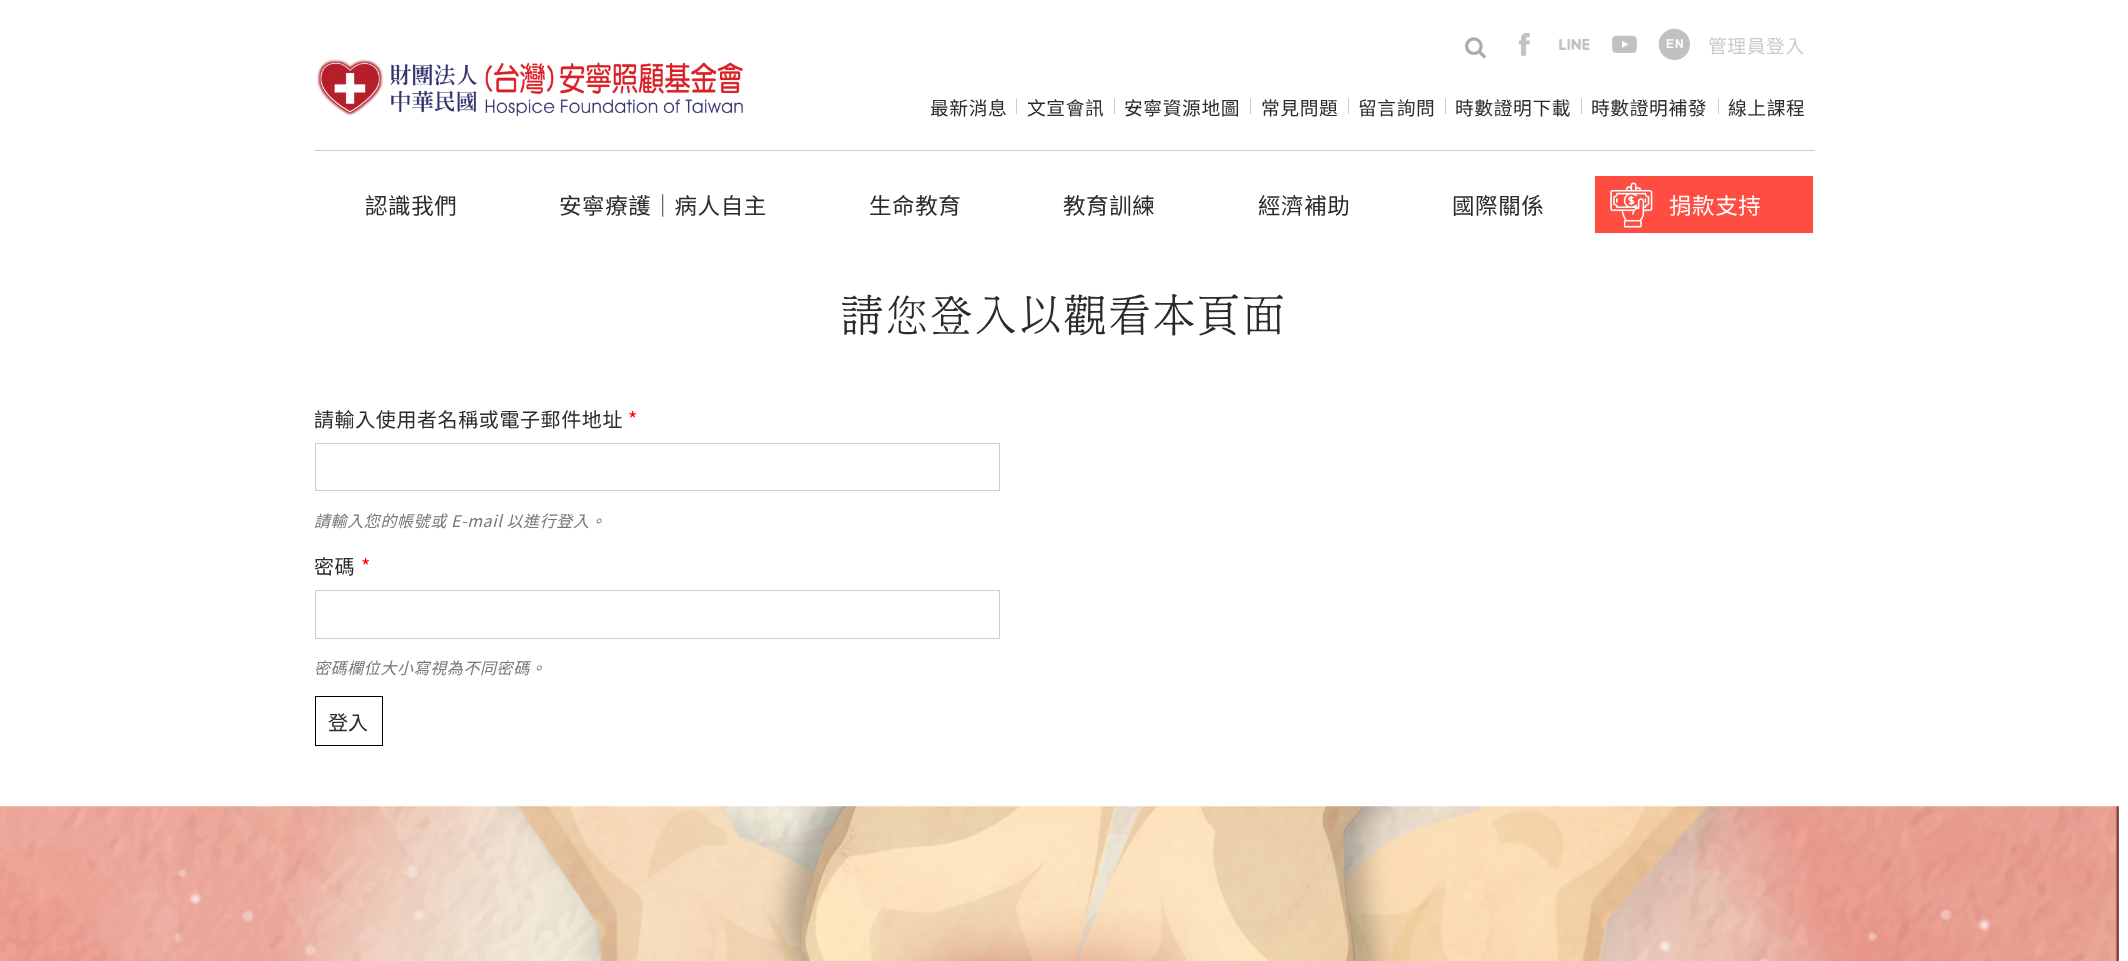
(async () => {
    const canvas = document.querySelector("canvas");
    canvas.width = 2128;
    canvas.height = 961;
    const context = canvas.getContext("2d");
    context.miterLimit = 4;
    context.fontKerning = "normal";
    function write(s, x, y, font, color) {
        context.font = font;
        context.fillStyle = color;
        context.fillText(s, x, y);
    }
    function block(x, y, w, h, color) {
        context.fillStyle = color;
        context.fillRect(x, y, w, h);
    }
    async function photo(src, x, y, w, h) {
        const img = new Image();
        img.src = src;
        await img.decode();
        context.drawImage(img, x, y, w, h);
    }

    block(0, 0, 2128, 961, "rgb(255, 255, 255)");
    await photo("media/1.png", 317, 59, 426, 58);
    await photo("media/2.png", 1465, 37, 21, 22);
    await photo("media/3.png", 1519, 33, 11, 23);
    await photo("media/4.png", 1559, 38, 31, 12);
    await photo("media/5.png", 1612, 35, 25, 18);
    await photo("media/6.png", 1658, 28, 32, 32);
    context.letterSpacing = "0.6px";
    write("管理員登入", 1708, 53, "18.75px Noto Sans TC", "rgb(204, 204, 204)");
    block(1016, 98, 1, 16, "rgb(204, 204, 204)");
    write("最新消息", 930, 115, "18.75px Noto Sans TC", "rgb(43, 43, 43)");
    block(1114, 98, 1, 16, "rgb(204, 204, 204)");
    write("文宣會訊", 1027, 115, "18.75px Noto Sans TC", "rgb(43, 43, 43)");
    block(1250, 98, 1, 16, "rgb(204, 204, 204)");
    write("安寧資源地圖", 1124, 115, "18.75px Noto Sans TC", "rgb(43, 43, 43)");
    block(1348, 98, 1, 16, "rgb(204, 204, 204)");
    write("常見問題", 1261, 115, "18.75px Noto Sans TC", "rgb(43, 43, 43)");
    block(1445, 98, 1, 16, "rgb(204, 204, 204)");
    write("留言詢問", 1358, 115, "18.75px Noto Sans TC", "rgb(43, 43, 43)");
    block(1581, 98, 1, 16, "rgb(204, 204, 204)");
    write("時數證明下載", 1455, 115, "18.75px Noto Sans TC", "rgb(43, 43, 43)");
    block(1718, 98, 1, 16, "rgb(204, 204, 204)");
    write("時數證明補發", 1591, 115, "18.75px Noto Sans TC", "rgb(43, 43, 43)");
    write("線上課程", 1728, 115, "18.75px Noto Sans TC", "rgb(43, 43, 43)");
    block(315, 150, 1500, 1, "rgb(204, 204, 204)");
    write("認識我們", 365, 214, "22.5px Noto Sans TC", "rgb(43, 43, 43)");
    write("安寧療護│病人自主", 559, 214, "22.5px Noto Sans TC", "rgb(43, 43, 43)");
    write("生命教育", 869, 214, "22.5px Noto Sans TC", "rgb(43, 43, 43)");
    write("教育訓練", 1063, 214, "22.5px Noto Sans TC", "rgb(43, 43, 43)");
    write("經濟補助", 1258, 214, "22.5px Noto Sans TC", "rgb(43, 43, 43)");
    write("國際關係", 1452, 214, "22.5px Noto Sans TC", "rgb(43, 43, 43)");
    block(1595, 176, 218, 57, "rgb(255, 78, 65)");
    await photo("media/7.png", 1610, 182, 43, 46);
    write("捐款支持", 1669, 214, "22.5px Noto Sans TC", "rgb(255, 255, 255)");
    context.letterSpacing = "2.25px";
    write("請您登入以觀看本頁面", 841, 330, "500 46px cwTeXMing", "rgb(43, 43, 43)");
    context.letterSpacing = "0.6px";
    write("請輸入使用者名稱或電子郵件地址", 314, 427, "20px Noto Sans TC", "rgb(43, 43, 43)");
    write("*", 628, 427, "20px Noto Sans TC", "rgb(255, 0, 0)");
    context.strokeStyle = "rgb(204, 204, 204)";
    context.strokeRect(315.5, 443.5, 684, 47);
    write("請輸入您的帳號或 E-mail 以進行登入。", 314, 527, "italic 16px Noto Sans TC", "rgb(119, 119, 119)");
    write("密碼", 314, 574, "20px Noto Sans TC", "rgb(43, 43, 43)");
    write("*", 361, 574, "20px Noto Sans TC", "rgb(255, 0, 0)");
    context.strokeRect(315.5, 590.5, 684, 48);
    write("密碼欄位大小寫視為不同密碼。", 314, 674, "italic 16px Noto Sans TC", "rgb(119, 119, 119)");
    context.strokeStyle = "rgb(0, 0, 0)";
    context.strokeRect(315.5, 696.5, 67, 49);
    context.letterSpacing = "0px";
    write("登入", 328, 730, "20px Noto Sans TC", "rgb(43, 43, 43)");
    await photo("media/8.png", 0, 806, 2119, 155);
})();
